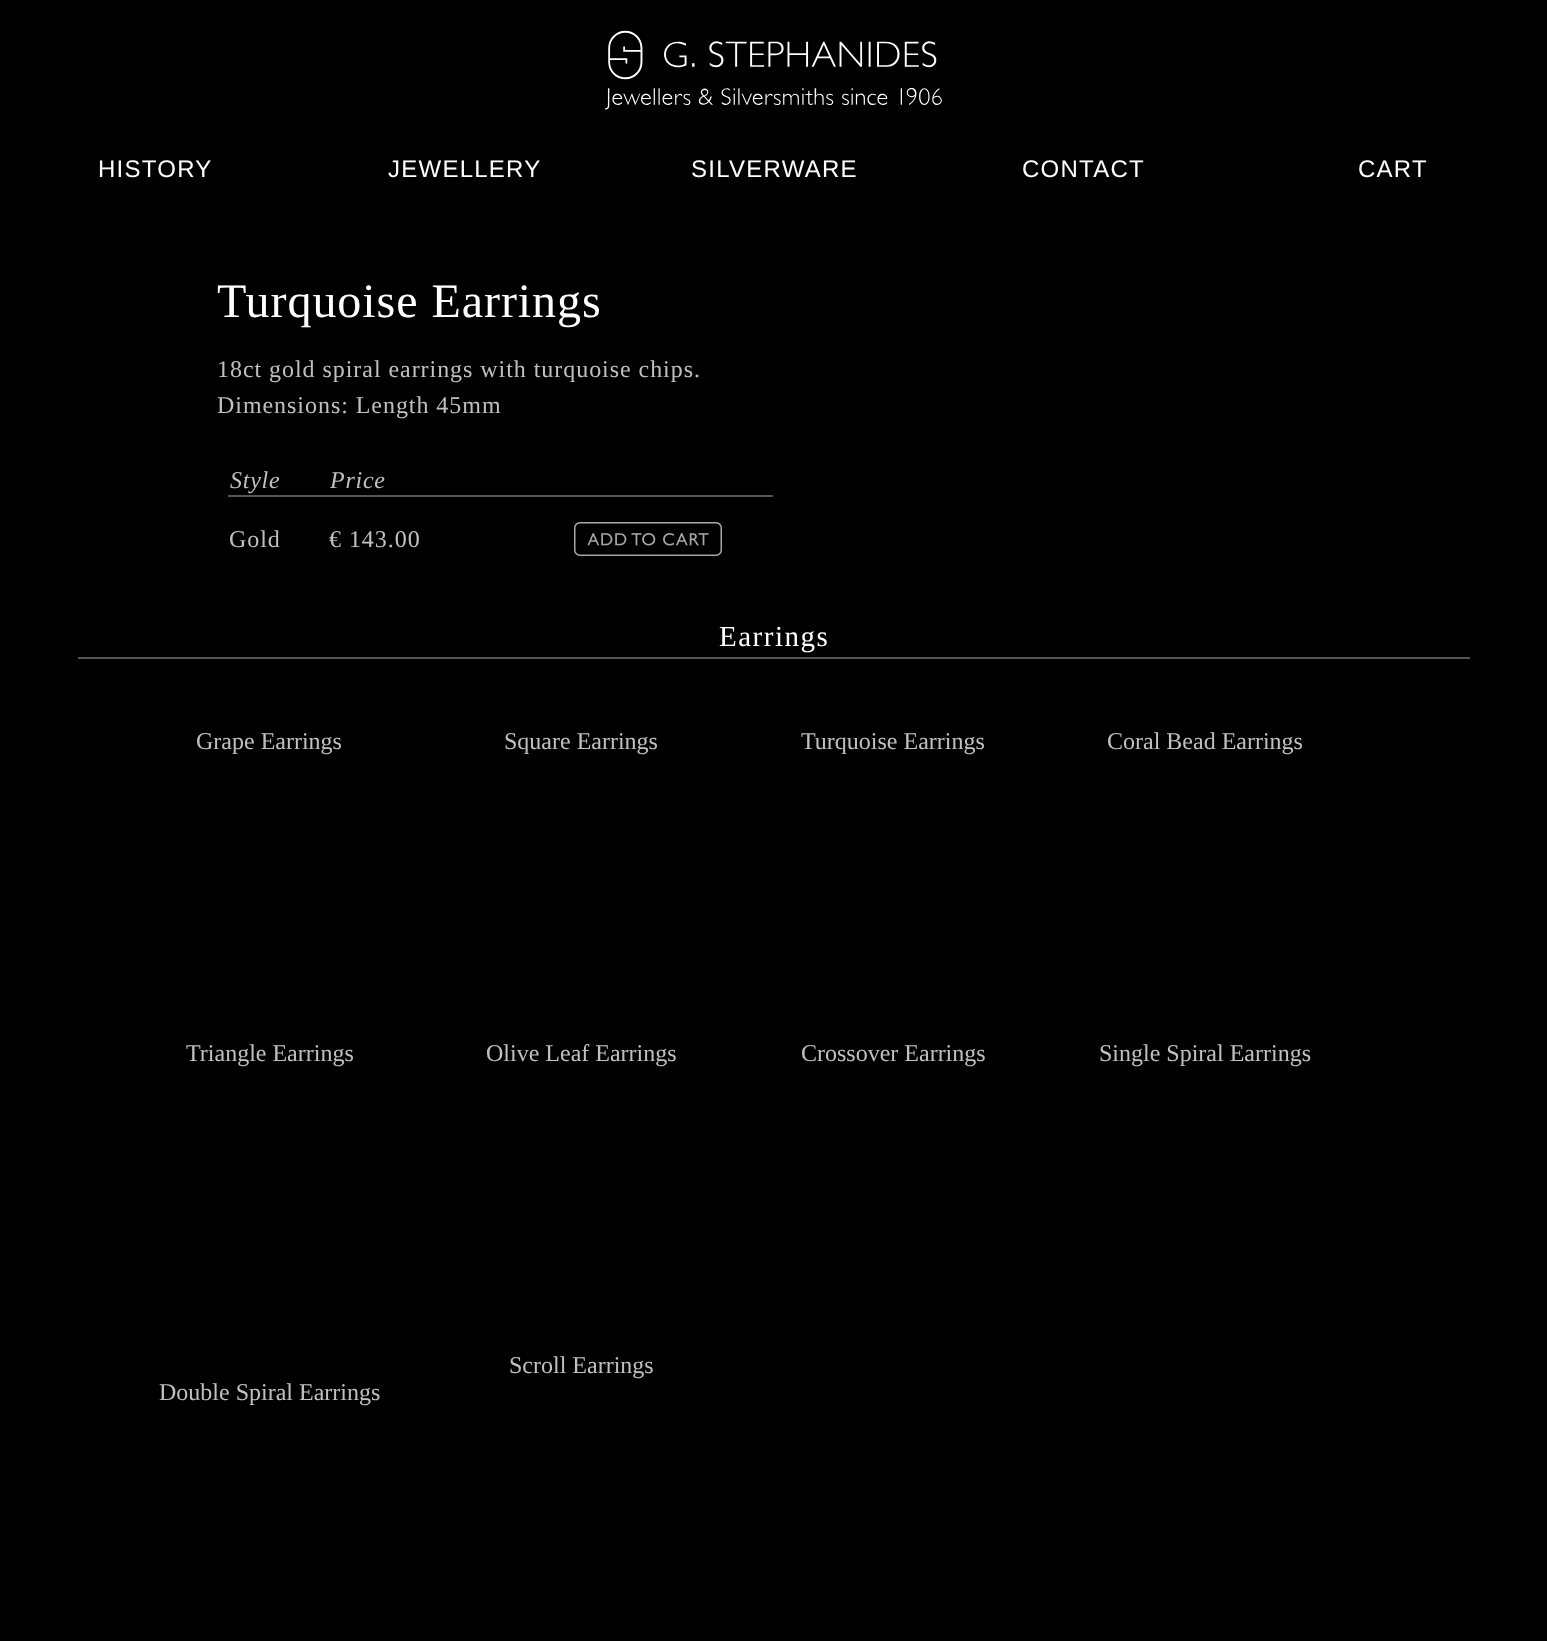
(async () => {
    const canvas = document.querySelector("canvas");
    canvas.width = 1547;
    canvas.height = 1641;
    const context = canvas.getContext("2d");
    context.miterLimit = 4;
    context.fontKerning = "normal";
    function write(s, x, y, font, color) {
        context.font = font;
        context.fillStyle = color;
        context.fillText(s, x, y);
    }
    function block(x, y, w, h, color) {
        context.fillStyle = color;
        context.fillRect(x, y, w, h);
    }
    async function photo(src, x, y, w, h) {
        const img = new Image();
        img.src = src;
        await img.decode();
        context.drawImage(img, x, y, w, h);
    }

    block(0, 0, 1547, 1641, "rgb(0, 0, 0)");
    await photo("media/1.png", 605, 30, 337, 80);
    context.letterSpacing = "1.25px";
    write("HISTORY", 98, 177, "24px Liberation Sans", "rgb(255, 255, 255)");
    write("JEWELLERY", 388, 177, "24px Liberation Sans", "rgb(255, 255, 255)");
    write("SILVERWARE", 691, 177, "24px Liberation Sans", "rgb(255, 255, 255)");
    write("CONTACT", 1022, 177, "24px Liberation Sans", "rgb(255, 255, 255)");
    write("CART", 1358, 177, "24px Liberation Sans", "rgb(255, 255, 255)");
    context.letterSpacing = "0.95px";
    write("Turquoise Earrings", 217, 317, "48px Liberation Serif", "rgb(255, 255, 255)");
    write("18ct gold spiral earrings with turquoise chips.", 217, 377, "24px Liberation Serif", "rgb(192, 192, 192)");
    write("Dimensions: Length 45mm", 217, 413, "24px Liberation Serif", "rgb(192, 192, 192)");
    block(228, 495, 545, 2, "rgb(85, 85, 85)");
    context.letterSpacing = "0.75px";
    write("Style", 230, 488, "italic 24px Liberation Serif", "rgb(192, 192, 192)");
    write("Price", 330, 488, "italic 24px Liberation Serif", "rgb(192, 192, 192)");
    context.letterSpacing = "0.95px";
    write("Gold", 229, 547, "24px Liberation Serif", "rgb(192, 192, 192)");
    write("€ 143.00", 329, 547, "24px Liberation Serif", "rgb(192, 192, 192)");
    await photo("media/2.png", 574, 522, 148, 34);
    block(78, 657, 1392, 2, "rgb(85, 85, 85)");
    context.letterSpacing = "1.5px";
    write("Earrings", 719, 646, "29px Liberation Serif", "rgb(255, 255, 255)");
    context.letterSpacing = "0px";
    write("Grape Earrings", 196, 749, "24px Liberation Serif", "rgb(192, 192, 192)");
    write("Square Earrings", 504, 749, "24px Liberation Serif", "rgb(192, 192, 192)");
    write("Turquoise Earrings", 801, 749, "24px Liberation Serif", "rgb(192, 192, 192)");
    write("Coral Bead Earrings", 1107, 749, "24px Liberation Serif", "rgb(192, 192, 192)");
    write("Triangle Earrings", 186, 1061, "24px Liberation Serif", "rgb(192, 192, 192)");
    write("Olive Leaf Earrings", 486, 1061, "24px Liberation Serif", "rgb(192, 192, 192)");
    write("Crossover Earrings", 801, 1061, "24px Liberation Serif", "rgb(192, 192, 192)");
    write("Single Spiral Earrings", 1099, 1061, "24px Liberation Serif", "rgb(192, 192, 192)");
    write("Scroll Earrings", 509, 1373, "24px Liberation Serif", "rgb(192, 192, 192)");
    write("Double Spiral Earrings", 159, 1400, "24px Liberation Serif", "rgb(192, 192, 192)");
})();
